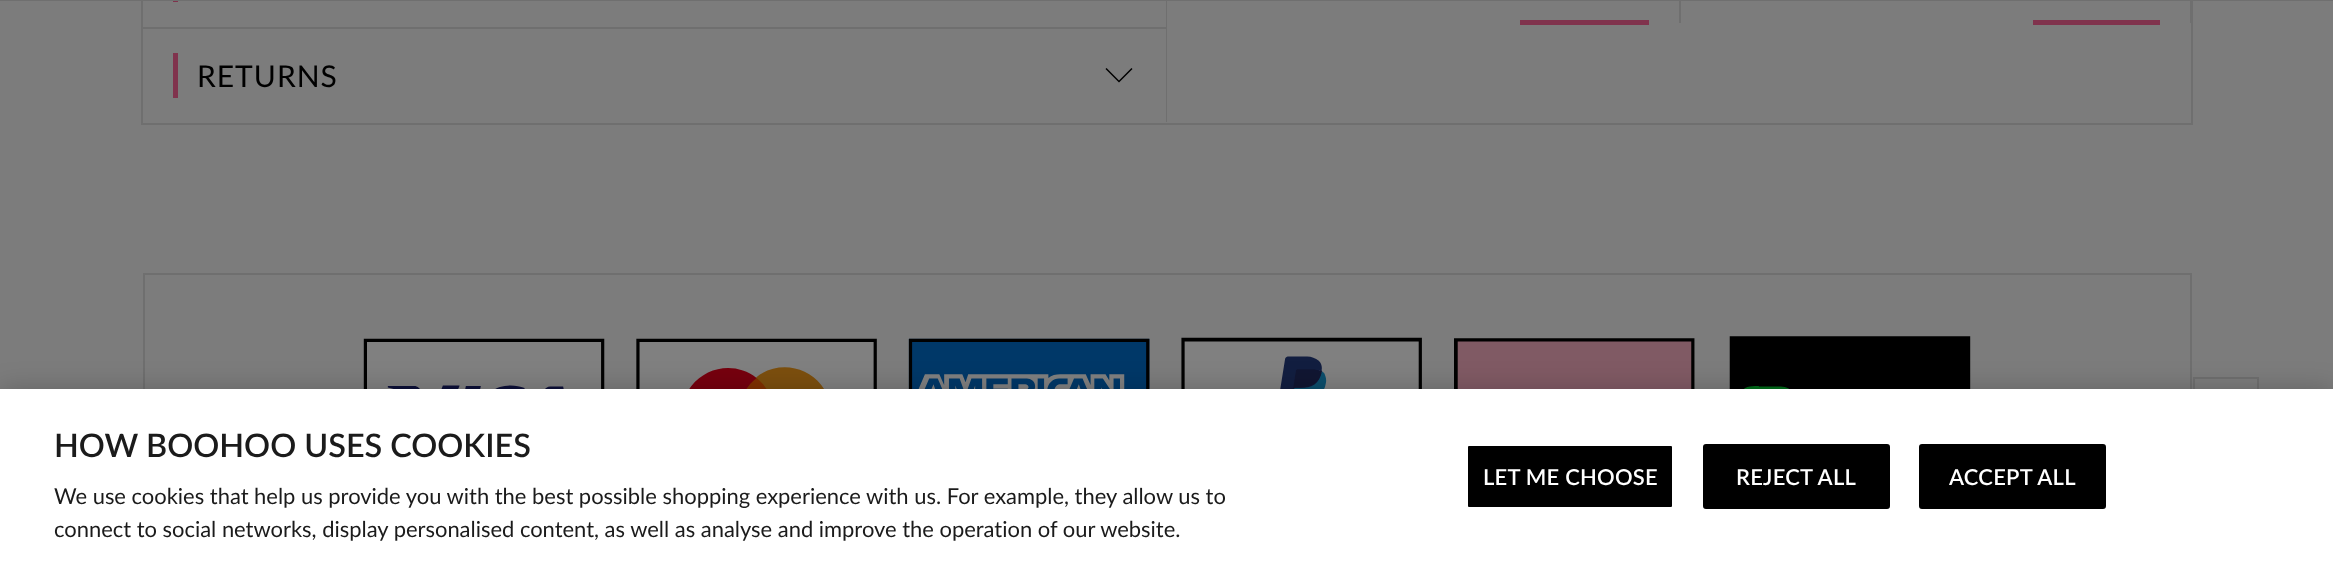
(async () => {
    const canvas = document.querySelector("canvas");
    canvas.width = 2333;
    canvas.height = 562;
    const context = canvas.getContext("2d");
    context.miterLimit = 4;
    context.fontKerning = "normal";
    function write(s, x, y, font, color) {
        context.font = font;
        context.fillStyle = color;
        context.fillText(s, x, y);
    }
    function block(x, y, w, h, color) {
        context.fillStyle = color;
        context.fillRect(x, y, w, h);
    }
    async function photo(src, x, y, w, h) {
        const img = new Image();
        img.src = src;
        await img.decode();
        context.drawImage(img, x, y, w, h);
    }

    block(0, 0, 2333, 562, "rgb(124, 124, 124)");
    context.strokeStyle = "rgb(111, 111, 111)";
    context.lineWidth = 2;
    context.strokeRect(142, -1, 2050, 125);
    block(143, 27, 1024, 2, "rgb(111, 111, 111)");
    context.beginPath();
    context.moveTo(1166, -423);
    context.lineTo(1166, 122);
    context.lineTo(1167, 122);
    context.lineTo(1167, -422);
    context.lineTo(2190, -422);
    context.lineTo(2190, -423);
    context.closePath();
    context.fill();
    block(1679, 0, 2, 23, "rgb(111, 111, 111)");
    block(2190, 0, 1, 23, "rgb(111, 111, 111)");
    block(0, 0, 2333, 1, "rgb(111, 111, 111)");
    block(173, 1, 5, 1, "rgb(128, 51, 77)");
    block(173, 53, 5, 45, "rgb(128, 51, 77)");
    context.letterSpacing = "1px";
    write("RETURNS", 197, 87, "30px Lato", "rgb(0, 0, 0)");
    await photo("media/1.png", 1105, 68, 28, 15);
    block(1520, 20, 129, 5, "rgb(128, 51, 77)");
    block(2033, 20, 127, 5, "rgb(128, 51, 77)");
    context.strokeRect(144, 274, 2047, 285);
    await photo("media/2.png", 363, 336, 1608, 53);
    context.strokeRect(2194, 378, 64, 64);
    context.fillStyle = "rgba(0, 0, 0, 0.2)";
    context.filter = "blur(13.5px)";
    context.beginPath();
    context.rect(0, 389, 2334, 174);
    context.fill();
    context.filter = "none";
    block(0, 389, 2333, 173, "rgb(255, 255, 255)");
    context.letterSpacing = "0px";
    write("HOW BOOHOO USES COOKIES", 54, 457, "600 32.4px Lato", "rgb(27, 27, 27)");
    write("We use cookies that help us provide you with the best possible shopping experience with us. For example, they allow us to", 54, 504, "21.95px Lato", "rgb(27, 27, 27)");
    write("connect to social networks, display personalised content, as well as analyse and improve the operation of our website.", 54, 537, "21.95px Lato", "rgb(27, 27, 27)");
    context.fillStyle = "rgb(0, 0, 0)";
    context.beginPath();
    context.roundRect(1467, 445, 206, 63, 2);
    context.fill();
    context.strokeStyle = "rgb(255, 255, 255)";
    context.stroke();
    context.letterSpacing = "0.25px";
    write("LET ME CHOOSE", 1483, 485, "600 21.95px Lato", "rgb(255, 255, 255)");
    context.fillStyle = "rgb(0, 0, 0)";
    context.beginPath();
    context.roundRect(1704, 445, 185, 63, 2);
    context.fill();
    context.strokeStyle = "rgb(0, 0, 0)";
    context.stroke();
    write("REJECT ALL", 1736, 485, "600 21.95px Lato", "rgb(255, 255, 255)");
    context.fillStyle = "rgb(0, 0, 0)";
    context.beginPath();
    context.roundRect(1920, 445, 185, 63, 2);
    context.fill();
    context.stroke();
    write("ACCEPT ALL", 1949, 485, "600 21.95px Lato", "rgb(255, 255, 255)");
})();
